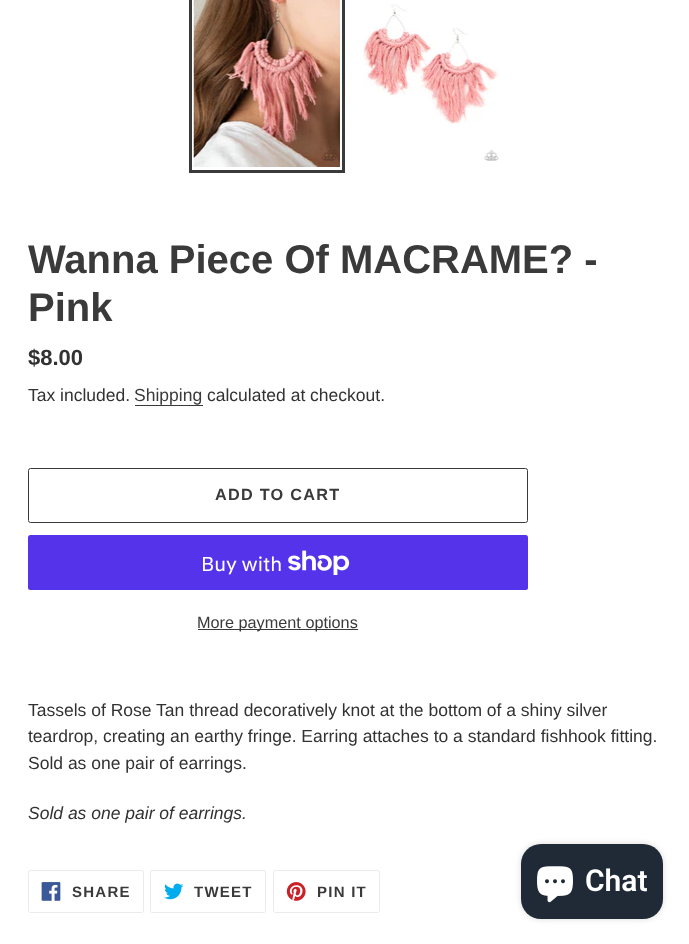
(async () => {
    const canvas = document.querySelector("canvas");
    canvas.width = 689;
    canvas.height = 944;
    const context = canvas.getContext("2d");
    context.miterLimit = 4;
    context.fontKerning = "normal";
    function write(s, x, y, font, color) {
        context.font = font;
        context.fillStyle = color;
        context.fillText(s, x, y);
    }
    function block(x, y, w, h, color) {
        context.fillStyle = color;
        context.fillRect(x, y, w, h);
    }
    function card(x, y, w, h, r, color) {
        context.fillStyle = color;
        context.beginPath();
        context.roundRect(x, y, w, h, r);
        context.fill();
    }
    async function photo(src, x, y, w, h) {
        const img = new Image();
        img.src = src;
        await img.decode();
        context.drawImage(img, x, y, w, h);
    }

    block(0, 0, 689, 944, "rgb(255, 255, 255)");
    context.strokeStyle = "rgb(58, 58, 58)";
    context.lineWidth = 3;
    context.strokeRect(190.5, -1.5, 153, 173);
    await photo("media/1.png", 193, 0, 147, 167);
    await photo("media/2.png", 363, 4, 136, 157);
    write("Wanna Piece Of MACRAME? -", 28, 273, "bold 40px Liberation Sans", "rgb(58, 58, 58)");
    write("Pink", 28, 321, "bold 40px Liberation Sans", "rgb(58, 58, 58)");
    write("$8.00", 28, 365, "bold 22px Liberation Sans", "rgb(51, 50, 50)");
    write("Tax included.", 28, 401, "17.5px Liberation Sans", "rgb(51, 50, 50)");
    write("Shipping", 134, 401, "17.5px Liberation Sans", "rgb(58, 58, 58)");
    block(135, 405, 68, 1, "rgb(58, 58, 58)");
    write("calculated at checkout.", 207, 401, "17.5px Liberation Sans", "rgb(51, 50, 50)");
    context.beginPath();
    context.roundRect(28.5, 468.5, 499, 54, 2);
    context.lineWidth = 1;
    context.stroke();
    context.letterSpacing = "1.25px";
    write("ADD TO CART", 215, 500, "bold 16.25px Liberation Sans", "rgb(58, 58, 58)");
    card(28, 535, 500, 55, 2.5, "rgb(84, 51, 235)");
    context.letterSpacing = "0px";
    write("Buy with", 201, 571, "20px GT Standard", "rgb(255, 255, 255)");
    await photo("media/3.png", 288, 550, 62, 25);
    block(198, 629, 160, 1, "rgb(58, 58, 58)");
    write("More payment options", 197, 628, "16.25px Liberation Sans", "rgb(58, 58, 58)");
    write("Tassels of Rose Tan thread decoratively knot at the bottom of a shiny silver", 28, 716, "17.5px Liberation Sans", "rgb(51, 50, 50)");
    write("teardrop, creating an earthy fringe. Earring attaches to a standard fishhook fitting.", 28, 742, "17.5px Liberation Sans", "rgb(51, 50, 50)");
    write("Sold as one pair of earrings.", 28, 769, "17.5px Liberation Sans", "rgb(51, 50, 50)");
    write("Sold as one pair of earrings.", 28, 819, "italic 17.5px Liberation Sans", "rgb(51, 50, 50)");
    context.beginPath();
    context.roundRect(28.5, 870.5, 115, 42, 2);
    context.strokeStyle = "rgb(235, 235, 235)";
    context.stroke();
    await photo("media/4.png", 41, 882, 20, 19);
    context.letterSpacing = "1.25px";
    write("SHARE", 72, 897, "bold 15px Liberation Sans", "rgb(58, 58, 58)");
    context.beginPath();
    context.roundRect(150.5, 870.5, 115, 42, 2);
    context.stroke();
    await photo("media/5.png", 164, 883, 20, 17);
    write("TWEET", 194, 897, "bold 15px Liberation Sans", "rgb(58, 58, 58)");
    context.beginPath();
    context.roundRect(273.5, 870.5, 106, 42, 2);
    context.stroke();
    await photo("media/6.png", 286, 882, 20, 19);
    write("PIN IT", 317, 897, "bold 15px Liberation Sans", "rgb(58, 58, 58)");
    context.fillStyle = "rgba(0, 0, 0, 0.15)";
    context.filter = "blur(3px)";
    context.beginPath();
    context.roundRect(521, 844, 142, 75, 20);
    context.fill();
    context.filter = "none";
    card(521, 844, 142, 75, 20, "rgb(32, 42, 54)");
    await photo("media/7.png", 537, 866, 36, 37);
    context.letterSpacing = "0px";
    write("Chat", 585, 891, "600 30px Roboto", "rgb(255, 255, 255)");
})();
